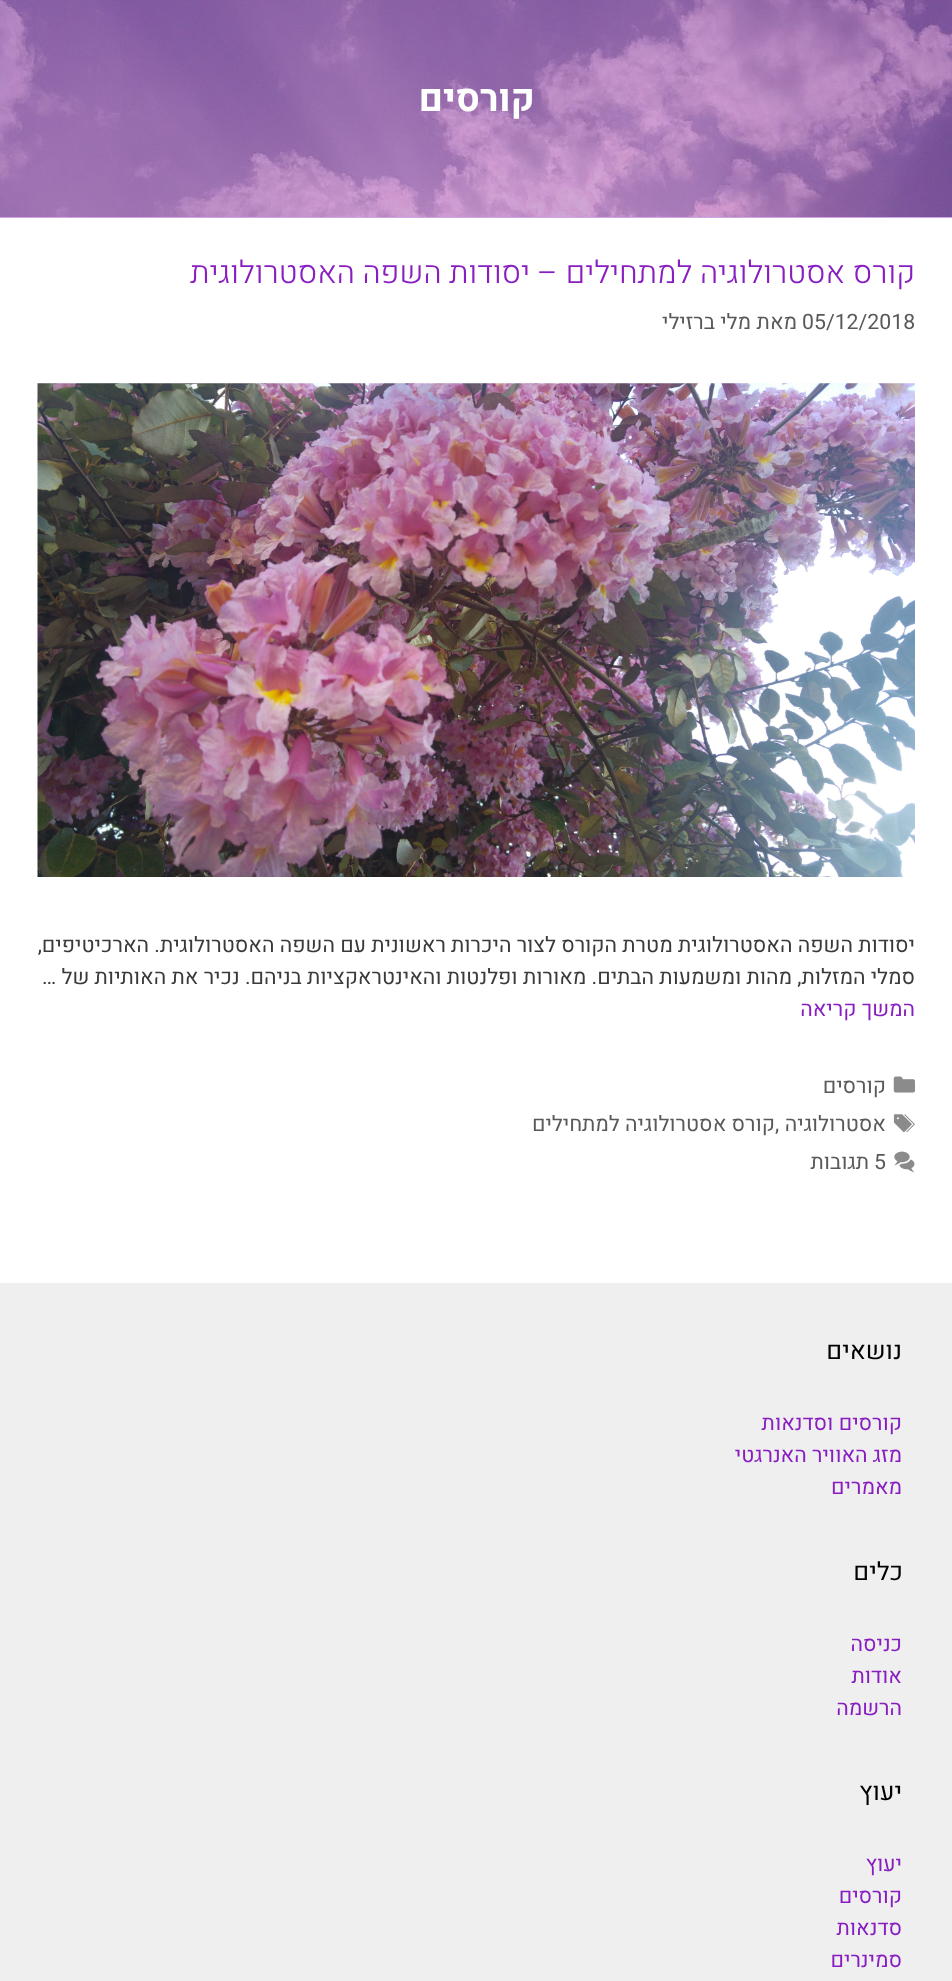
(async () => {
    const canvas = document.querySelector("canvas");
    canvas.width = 952;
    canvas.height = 1981;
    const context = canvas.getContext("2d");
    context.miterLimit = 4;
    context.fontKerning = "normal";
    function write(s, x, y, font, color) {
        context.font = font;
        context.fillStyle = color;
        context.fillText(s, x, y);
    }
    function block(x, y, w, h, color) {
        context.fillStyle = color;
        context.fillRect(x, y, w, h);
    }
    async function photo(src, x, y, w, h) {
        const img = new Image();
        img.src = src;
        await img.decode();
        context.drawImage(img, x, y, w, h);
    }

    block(0, 0, 952, 1981, "rgb(255, 255, 255)");
    block(0, 217, 952, 1, "rgb(208, 165, 231)");
    await photo("media/1.png", 0, 0, 952, 217);
    context.direction = "rtl";
    write("קורסים", 535, 111, "bold 37.5px Heebo", "rgb(255, 255, 255)");
    write("קורס אסטרולוגיה למתחילים – יסודות השפה האסטרולוגית", 915, 283, "300 31.25px Heebo", "rgb(136, 29, 193)");
    context.direction = "ltr";
    write("05/12/2018", 802, 329, "21.25px Heebo", "rgb(89, 89, 89)");
    context.direction = "rtl";
    write("מאת", 797, 329, "21.25px Heebo", "rgb(89, 89, 89)");
    write("מלי ברזילי", 751, 329, "21.25px Heebo", "rgb(89, 89, 89)");
    await photo("media/2.png", 37, 383, 878, 494);
    write("יסודות השפה האסטרולוגית מטרת הקורס לצור היכרות ראשונית עם השפה האסטרולוגית. הארכיטיפים,", 915, 952, "21.25px Heebo", "rgb(58, 58, 58)");
    write("סמלי המזלות, מהות ומשמעות הבתים. מאורות ופלנטות והאינטראקציות בניהם. נכיר את האותיות של …", 915, 984, "21.25px Heebo", "rgb(58, 58, 58)");
    write("המשך קריאה", 915, 1016, "21.25px Heebo", "rgb(136, 29, 193)");
    await photo("media/3.png", 893, 1076, 22, 17);
    write("קורסים", 886, 1093, "21.25px Heebo", "rgb(89, 89, 89)");
    await photo("media/4.png", 893, 1114, 22, 19);
    write("אסטרולוגיה", 886, 1131, "21.25px Heebo", "rgb(89, 89, 89)");
    context.direction = "ltr";
    write(",", 775, 1131, "21.25px Heebo", "rgb(89, 89, 89)");
    context.direction = "rtl";
    write("קורס אסטרולוגיה למתחילים", 775, 1131, "21.25px Heebo", "rgb(89, 89, 89)");
    await photo("media/5.png", 894, 1151, 21, 22);
    context.direction = "ltr";
    write("5", 874, 1169, "21.25px Heebo", "rgb(89, 89, 89)");
    context.direction = "rtl";
    write("תגובות", 869, 1169, "21.25px Heebo", "rgb(89, 89, 89)");
    block(0, 1283, 952, 698, "rgb(239, 239, 239)");
    write("נושאים", 902, 1359, "25px Heebo", "rgb(0, 0, 0)");
    write("קורסים וסדנאות", 902, 1430, "21.25px Heebo", "rgb(136, 29, 193)");
    write("מזג האוויר האנרגטי", 902, 1462, "21.25px Heebo", "rgb(136, 29, 193)");
    write("מאמרים", 902, 1494, "21.25px Heebo", "rgb(136, 29, 193)");
    write("כלים", 903, 1580, "25px Heebo", "rgb(0, 0, 0)");
    write("כניסה", 902, 1651, "21.25px Heebo", "rgb(136, 29, 193)");
    write("אודות", 902, 1683, "21.25px Heebo", "rgb(136, 29, 193)");
    write("הרשמה", 902, 1715, "21.25px Heebo", "rgb(136, 29, 193)");
    write("יעוץ", 902, 1800, "25px Heebo", "rgb(0, 0, 0)");
    write("יעוץ", 902, 1871, "21.25px Heebo", "rgb(136, 29, 193)");
    write("קורסים", 902, 1903, "21.25px Heebo", "rgb(136, 29, 193)");
    write("סדנאות", 902, 1935, "21.25px Heebo", "rgb(136, 29, 193)");
    write("סמינרים", 902, 1967, "21.25px Heebo", "rgb(136, 29, 193)");
})();
